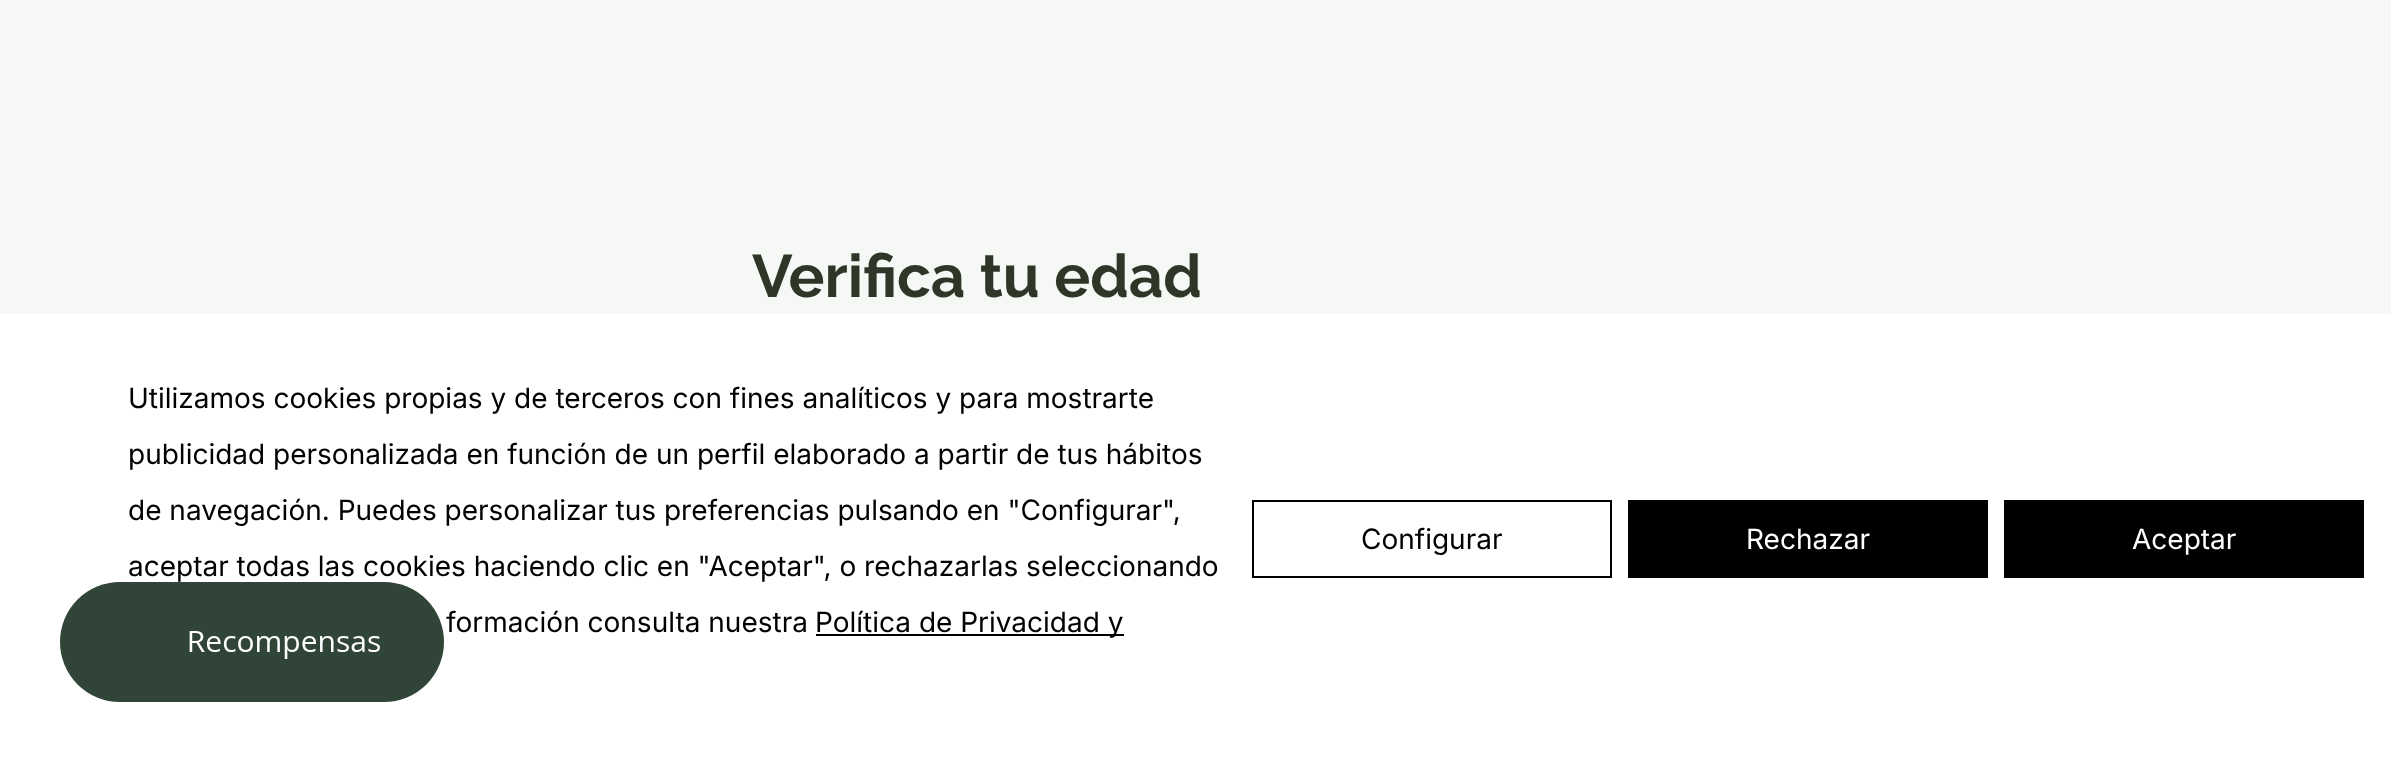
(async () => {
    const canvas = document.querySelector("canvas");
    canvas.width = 2391;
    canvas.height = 762;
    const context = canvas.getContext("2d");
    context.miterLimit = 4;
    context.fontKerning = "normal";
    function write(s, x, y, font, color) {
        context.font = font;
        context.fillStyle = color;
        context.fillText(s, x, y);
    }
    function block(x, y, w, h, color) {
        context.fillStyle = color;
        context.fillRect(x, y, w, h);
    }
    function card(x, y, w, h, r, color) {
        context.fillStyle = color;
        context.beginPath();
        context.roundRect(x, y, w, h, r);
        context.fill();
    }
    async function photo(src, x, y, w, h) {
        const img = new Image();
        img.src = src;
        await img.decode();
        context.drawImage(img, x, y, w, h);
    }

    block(0, 0, 2391, 762, "rgb(245, 248, 244)");
    write("Verifica tu edad", 752, 297, "bold 60px Raleway", "rgb(45, 54, 39)");
    block(0, 314, 2391, 448, "rgb(255, 255, 255)");
    write("Utilizamos cookies propias y de terceros con fines analíticos y para mostrarte", 128, 408, "28px Inter", "rgb(0, 0, 0)");
    write("publicidad personalizada en función de un perfil elaborado a partir de tus hábitos", 128, 464, "28px Inter", "rgb(0, 0, 0)");
    write("de navegación. Puedes personalizar tus preferencias pulsando en \"Configurar\",", 128, 520, "28px Inter", "rgb(0, 0, 0)");
    write("aceptar todas las cookies haciendo clic en \"Aceptar\", o rechazarlas seleccionando", 128, 576, "28px Inter", "rgb(0, 0, 0)");
    write("formación consulta nuestra", 446, 632, "28px Inter", "rgb(0, 0, 0)");
    block(816, 634, 308, 2, "rgb(0, 0, 0)");
    write("Política de Privacidad y", 815, 632, "28px Inter", "rgb(0, 0, 0)");
    context.strokeStyle = "rgb(0, 0, 0)";
    context.lineWidth = 2;
    context.strokeRect(1253, 501, 358, 76);
    write("Configurar", 1361, 549, "28px Inter", "rgb(0, 0, 0)");
    block(1628, 500, 360, 78, "rgb(0, 0, 0)");
    write("Rechazar", 1746, 549, "28px Inter", "rgb(255, 255, 255)");
    block(2004, 500, 360, 78, "rgb(0, 0, 0)");
    write("Aceptar", 2132, 549, "28px Inter", "rgb(255, 255, 255)");
    card(60, 582, 384, 120, 60, "rgb(48, 69, 55)");
    await photo("media/1.png", 189, 631, 191, 28);
})();
